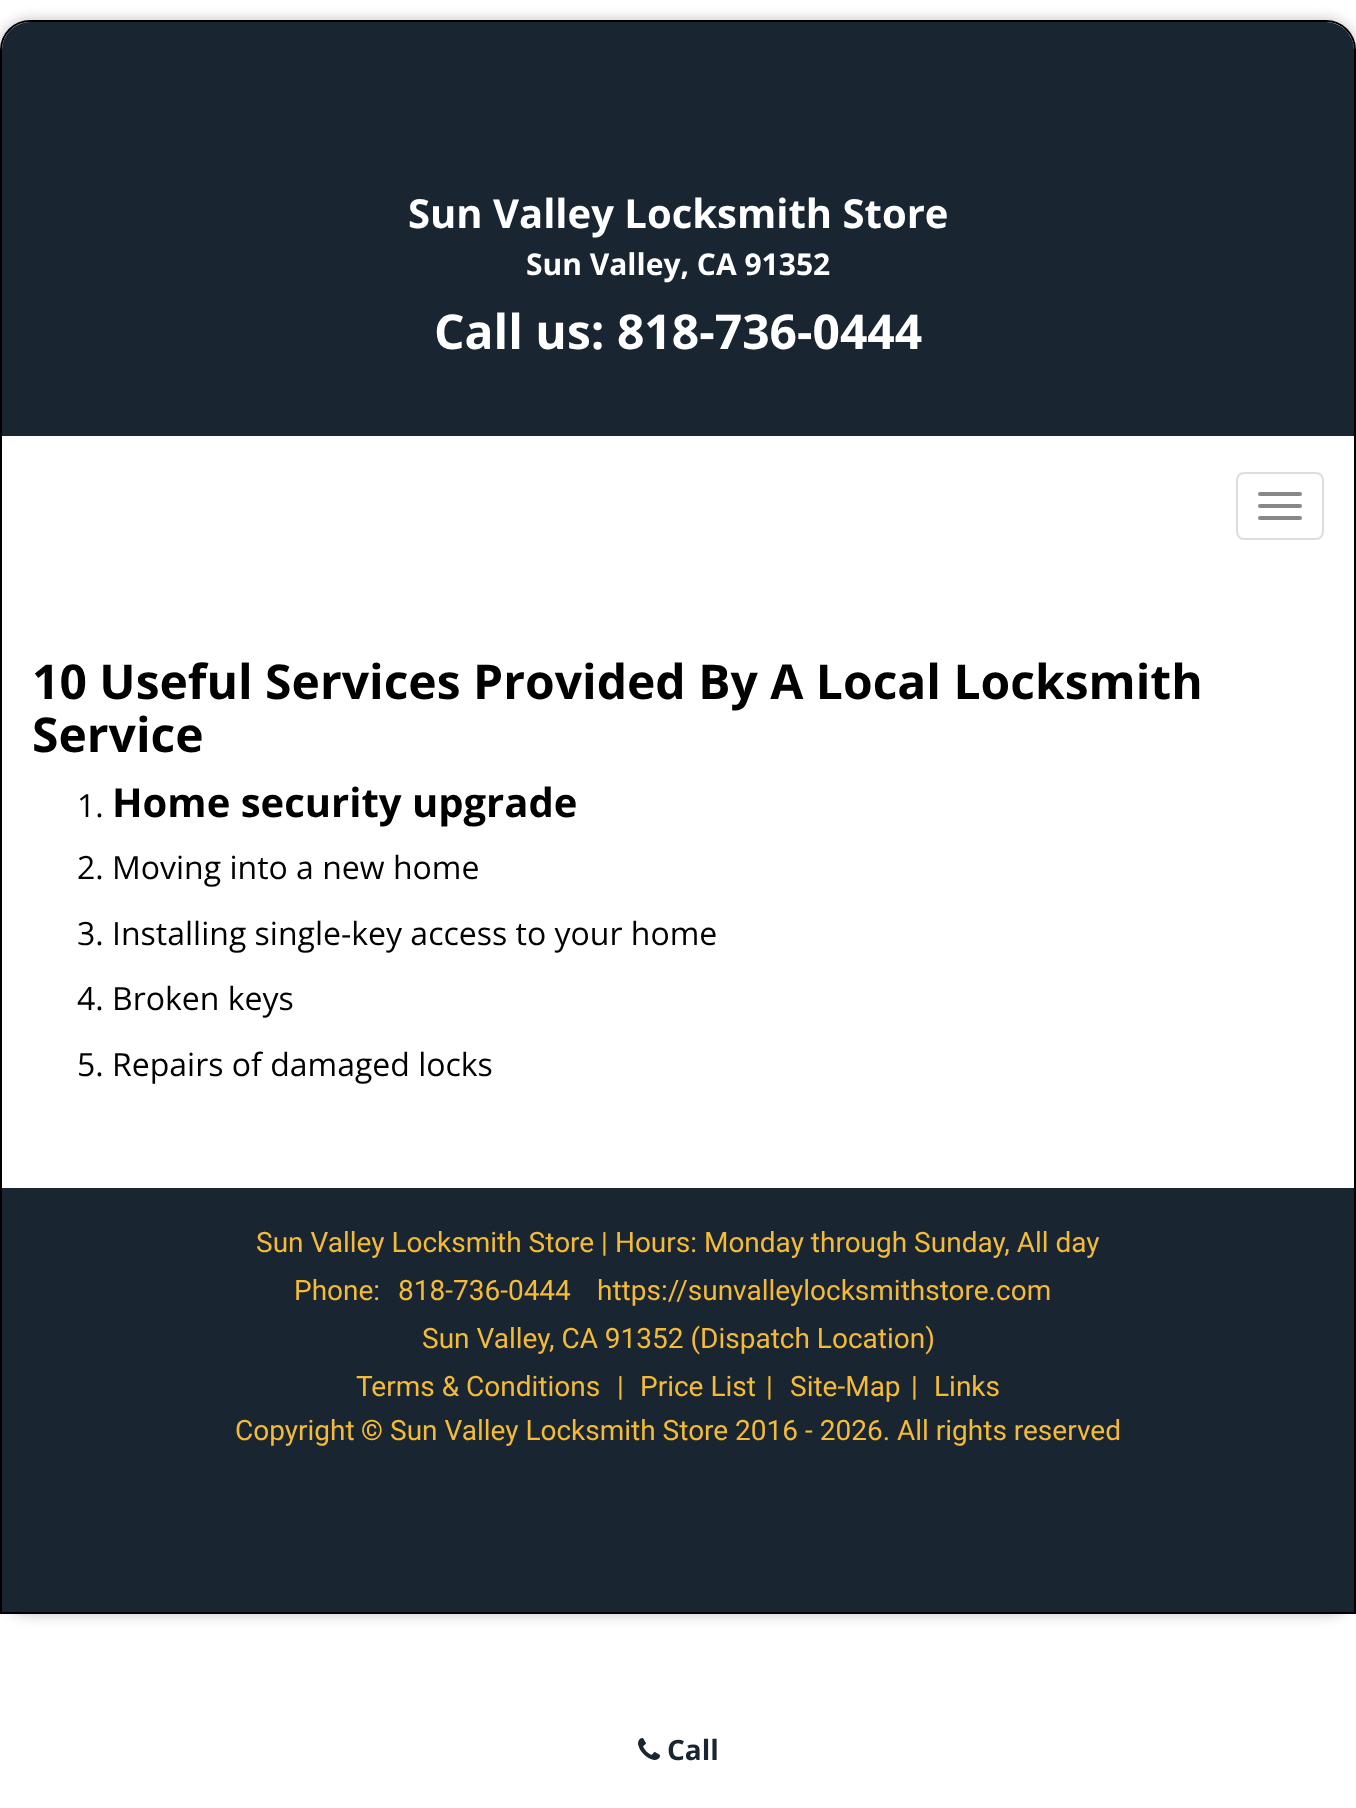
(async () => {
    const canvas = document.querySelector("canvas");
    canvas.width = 1356;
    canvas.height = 1808;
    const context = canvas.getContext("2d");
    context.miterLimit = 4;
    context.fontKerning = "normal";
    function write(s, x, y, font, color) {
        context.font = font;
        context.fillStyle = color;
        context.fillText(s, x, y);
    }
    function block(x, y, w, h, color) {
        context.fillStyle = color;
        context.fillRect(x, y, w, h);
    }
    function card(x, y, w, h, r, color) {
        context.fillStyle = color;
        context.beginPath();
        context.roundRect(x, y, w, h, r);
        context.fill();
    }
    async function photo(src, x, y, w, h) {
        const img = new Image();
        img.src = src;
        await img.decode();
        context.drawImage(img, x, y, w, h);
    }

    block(0, 0, 1356, 1808, "rgb(255, 255, 255)");
    context.save();
    context.beginPath();
    context.moveTo(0, 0);
    context.lineTo(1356, 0);
    context.lineTo(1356, 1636);
    context.lineTo(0, 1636);
    context.closePath();
    context.moveTo(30, 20);
    context.lineTo(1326, 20);
    context.bezierCurveTo(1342.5, 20, 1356, 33.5, 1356, 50);
    context.lineTo(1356, 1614);
    context.lineTo(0, 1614);
    context.lineTo(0, 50);
    context.bezierCurveTo(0, 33.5, 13.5, 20, 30, 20);
    context.closePath();
    context.clip("evenodd");
    context.fillStyle = "rgb(191, 191, 191)";
    context.filter = "blur(7px)";
    context.beginPath();
    context.roundRect(0, 20, 1356, 1594, 30);
    context.fill();
    context.filter = "none";
    context.restore();
    context.beginPath();
    context.roundRect(1, 21, 1354, 1592, [29, 29, 0, 0]);
    context.strokeStyle = "rgb(0, 0, 0)";
    context.lineWidth = 2;
    context.stroke();
    context.fillStyle = "rgb(26, 37, 50)";
    context.beginPath();
    context.roundRect(2, 22, 1352, 414, [28, 28, 0, 0]);
    context.fill();
    write("Sun Valley Locksmith Store", 408, 228, "bold 40px Open Sans", "rgb(255, 255, 255)");
    write("Sun Valley, CA 91352", 526, 275, "bold 30px Open Sans", "rgb(255, 255, 255)");
    write("Call us: 818-736-0444", 434, 349, "bold 48px Open Sans", "rgb(255, 255, 255)");
    context.beginPath();
    context.roundRect(1237, 473, 86, 66, 7);
    context.strokeStyle = "rgb(221, 221, 221)";
    context.stroke();
    card(1258, 492, 44, 4, 2, "rgb(136, 136, 136)");
    card(1258, 504, 44, 4, 2, "rgb(136, 136, 136)");
    card(1258, 516, 44, 4, 2, "rgb(136, 136, 136)");
    write("10 Useful Services Provided By A Local Locksmith", 32, 699, "bold 48px Open Sans", "rgb(0, 0, 0)");
    write("Service", 32, 752, "bold 48px Open Sans", "rgb(0, 0, 0)");
    write("1.", 77, 817, "32px Open Sans", "rgb(0, 0, 0)");
    write("Home security upgrade", 112, 817, "bold 40px Open Sans", "rgb(0, 0, 0)");
    write("2. Moving into a new home", 77, 879, "32px Open Sans", "rgb(0, 0, 0)");
    write("3. Installing single-key access to your home", 77, 945, "32px Open Sans", "rgb(0, 0, 0)");
    write("4. Broken keys", 77, 1010, "32px Open Sans", "rgb(0, 0, 0)");
    write("5. Repairs of damaged locks", 77, 1076, "32px Open Sans", "rgb(0, 0, 0)");
    block(2, 1188, 1352, 424, "rgb(26, 37, 50)");
    write("Sun Valley Locksmith Store | Hours: Monday through Sunday, All day", 256, 1252, "28px Roboto", "rgb(244, 187, 54)");
    write("Phone:", 294, 1300, "28px Roboto", "rgb(244, 187, 54)");
    write("818-736-0444", 398, 1300, "28px Roboto", "rgb(244, 187, 54)");
    write("https://sunvalleylocksmithstore.com", 597, 1300, "28px Roboto", "rgb(244, 187, 54)");
    write("Sun Valley, CA 91352 (Dispatch Location)", 422, 1348, "28px Roboto", "rgb(244, 187, 54)");
    write("Terms & Conditions", 356, 1396, "28px Roboto", "rgb(244, 187, 54)");
    write("|", 617, 1396, "28px Roboto", "rgb(244, 187, 54)");
    write("Price List", 640, 1396, "28px Roboto", "rgb(244, 187, 54)");
    write("|", 766, 1396, "28px Roboto", "rgb(244, 187, 54)");
    write("Site-Map", 790, 1396, "28px Roboto", "rgb(244, 187, 54)");
    write("|", 911, 1396, "28px Roboto", "rgb(244, 187, 54)");
    write("Links", 934, 1396, "28px Roboto", "rgb(244, 187, 54)");
    write("Copyright", 235, 1440, "28px Roboto", "rgb(244, 187, 54)");
    write("©", 361, 1440, "bold 28px Roboto", "rgb(244, 187, 54)");
    write("Sun Valley Locksmith Store 2016 - 2026. All rights reserved", 390, 1440, "28px Roboto", "rgb(244, 187, 54)");
    await photo("media/1.png", 638, 1738, 22, 22);
    write("Call", 667, 1760, "bold 28px Open Sans", "rgb(26, 37, 50)");
})();
